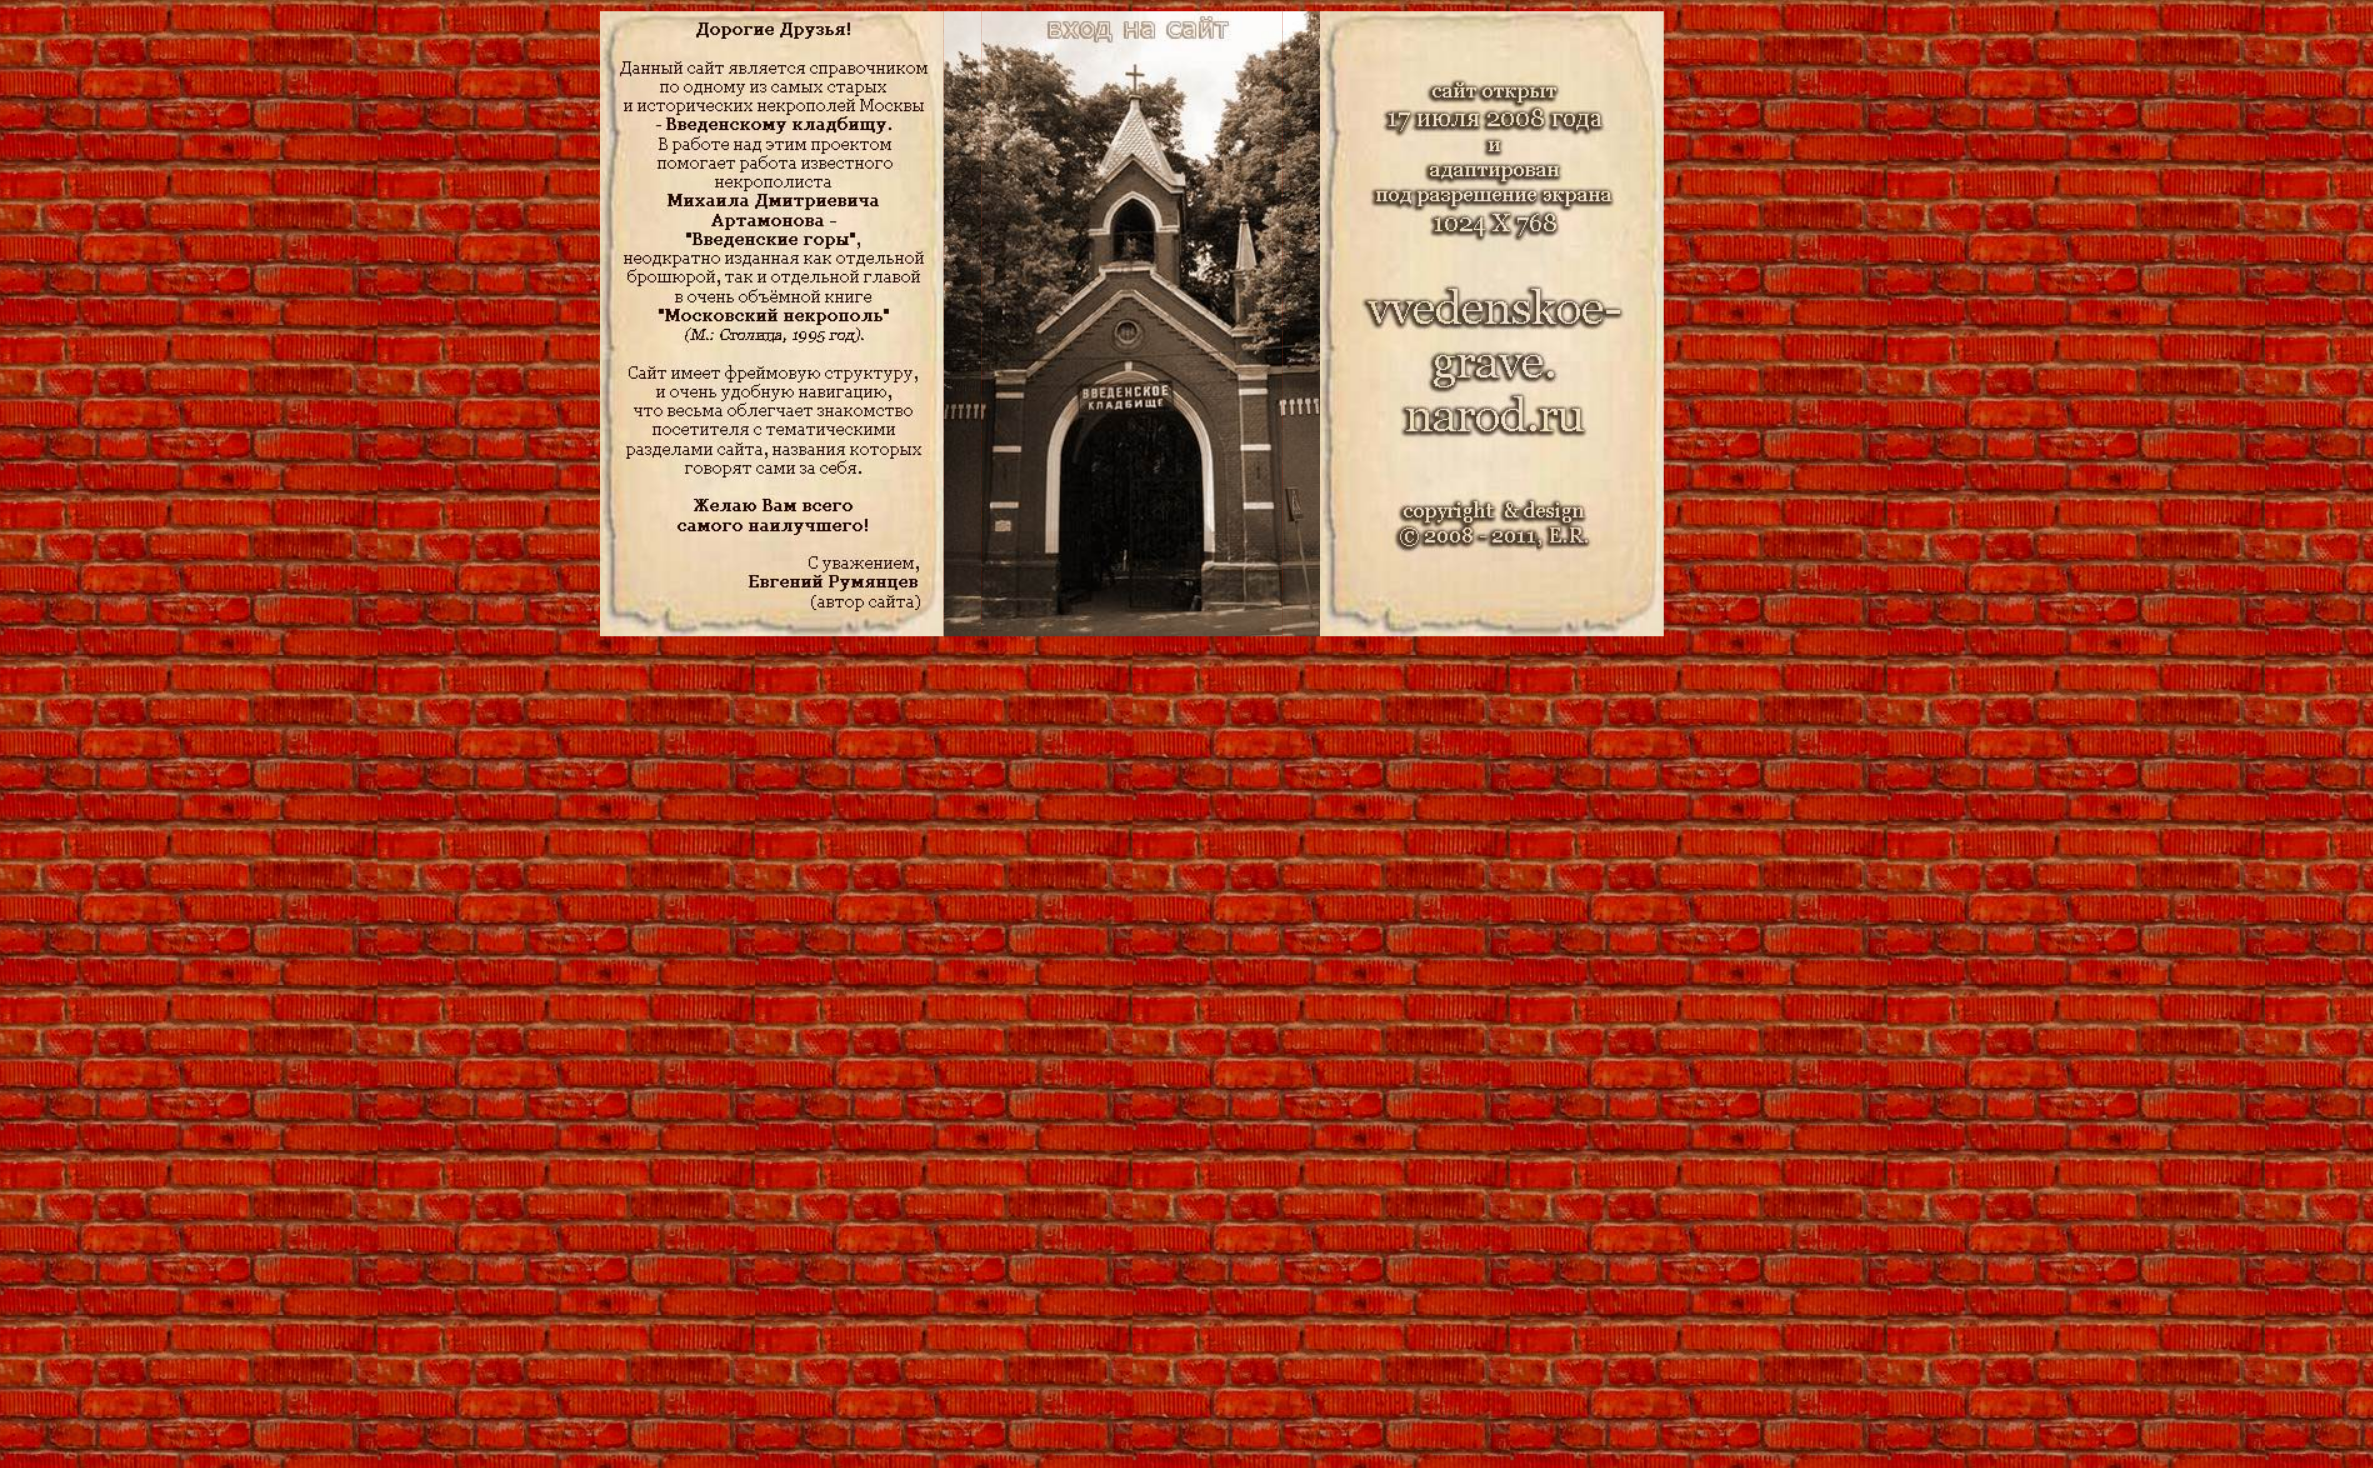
(async () => {
    const canvas = document.querySelector("canvas");
    canvas.width = 2373;
    canvas.height = 1468;
    const context = canvas.getContext("2d");
    context.miterLimit = 4;
    context.fontKerning = "normal";
    function block(x, y, w, h, color) {
        context.fillStyle = color;
        context.fillRect(x, y, w, h);
    }
    async function photo(src, x, y, w, h) {
        const img = new Image();
        img.src = src;
        await img.decode();
        context.drawImage(img, x, y, w, h);
    }

    block(0, 0, 2373, 1468, "rgb(255, 255, 255)");
    await photo("media/1.png", 0, 0, 2373, 1468);
    await photo("media/2.png", 600, 11, 344, 626);
    await photo("media/3.png", 943, 11, 39, 626);
    await photo("media/4.png", 981, 11, 302, 626);
    await photo("media/5.png", 1282, 11, 38, 626);
    await photo("media/6.png", 1320, 11, 344, 626);
})();
